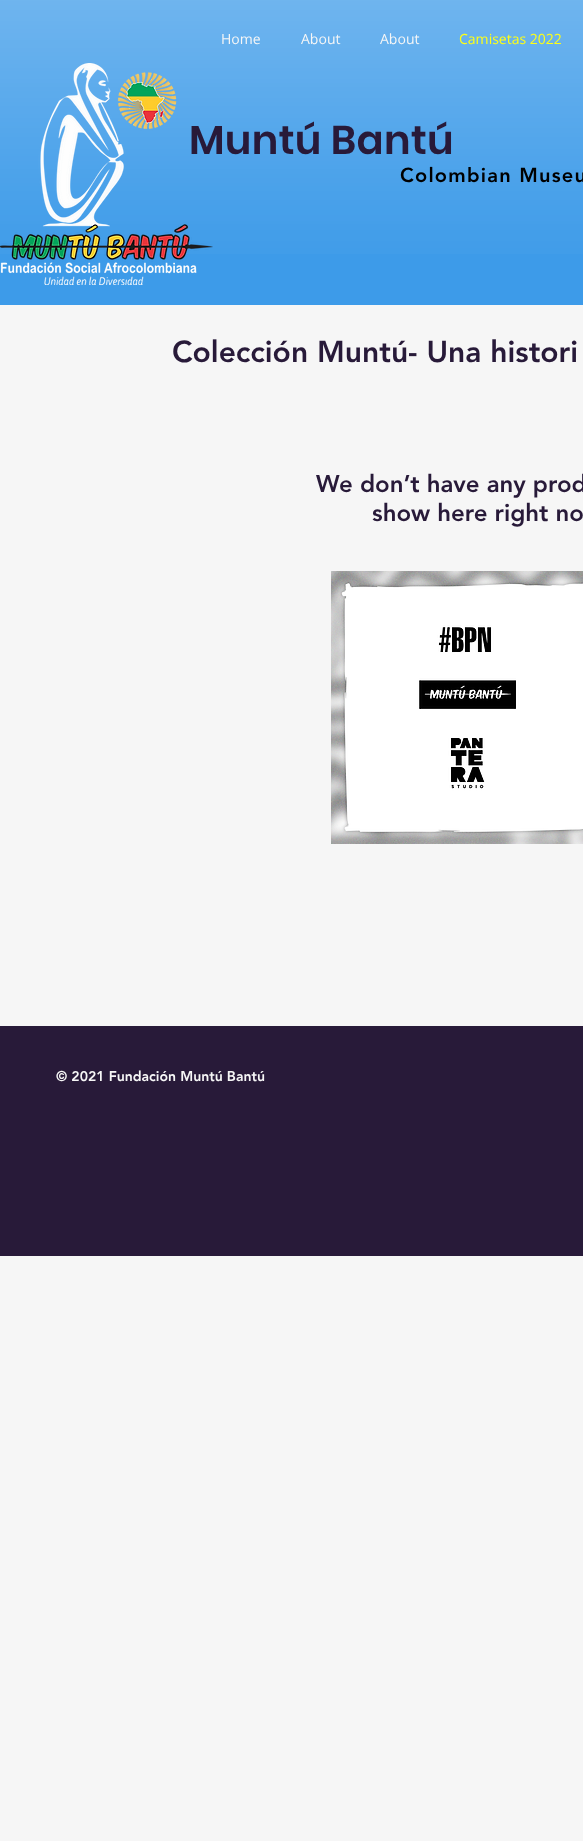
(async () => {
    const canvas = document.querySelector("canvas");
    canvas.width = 583;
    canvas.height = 1841;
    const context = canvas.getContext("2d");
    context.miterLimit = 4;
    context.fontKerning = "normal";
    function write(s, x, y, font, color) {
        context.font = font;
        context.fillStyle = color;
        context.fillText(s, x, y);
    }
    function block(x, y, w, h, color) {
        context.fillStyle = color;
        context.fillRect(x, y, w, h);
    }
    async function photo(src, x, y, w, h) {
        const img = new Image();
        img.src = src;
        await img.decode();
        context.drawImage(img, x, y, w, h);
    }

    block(0, 0, 583, 1841, "rgb(246, 246, 246)");
    block(0, 0, 583, 305, "rgb(61, 155, 233)");
    await photo("media/1.png", 0, 0, 583, 254);
    write("Home", 221, 44, "14px Open Sans", "rgb(246, 246, 246)");
    write("About", 301, 44, "14px Open Sans", "rgb(246, 246, 246)");
    write("About", 380, 44, "14px Open Sans", "rgb(246, 246, 246)");
    write("Camisetas 2022", 459, 44, "14px Open Sans", "rgb(255, 255, 20)");
    await photo("media/2.png", 0, 63, 213, 222);
    context.letterSpacing = "0.4px";
    write("Muntú Bantú", 189, 154, "600 40px Poppins", "rgb(40, 26, 57)");
    context.letterSpacing = "1.25px";
    write("Colombian Museu", 400, 182, "900 20px 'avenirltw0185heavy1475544'", "rgb(0, 0, 0)");
    context.letterSpacing = "0px";
    write("Colección Muntú- Una histori", 172, 362, "900 30px 'avenirltw0185heavy1475544'", "rgb(40, 26, 57)");
    write("We don’t have any prod", 316, 492, "900 24px 'avenirltw0185heavy1475544'", "rgb(40, 26, 57)");
    write("show here right no", 372, 521, "900 24px 'avenirltw0185heavy1475544'", "rgb(40, 26, 57)");
    await photo("media/3.png", 331, 571, 252, 273);
    block(0, 1026, 583, 230, "rgb(40, 26, 57)");
    write("© 2021 Fundación Muntú Bantú", 56, 1081, "900 14px 'avenirltw0185heavy1475544'", "rgb(246, 246, 246)");
})();
